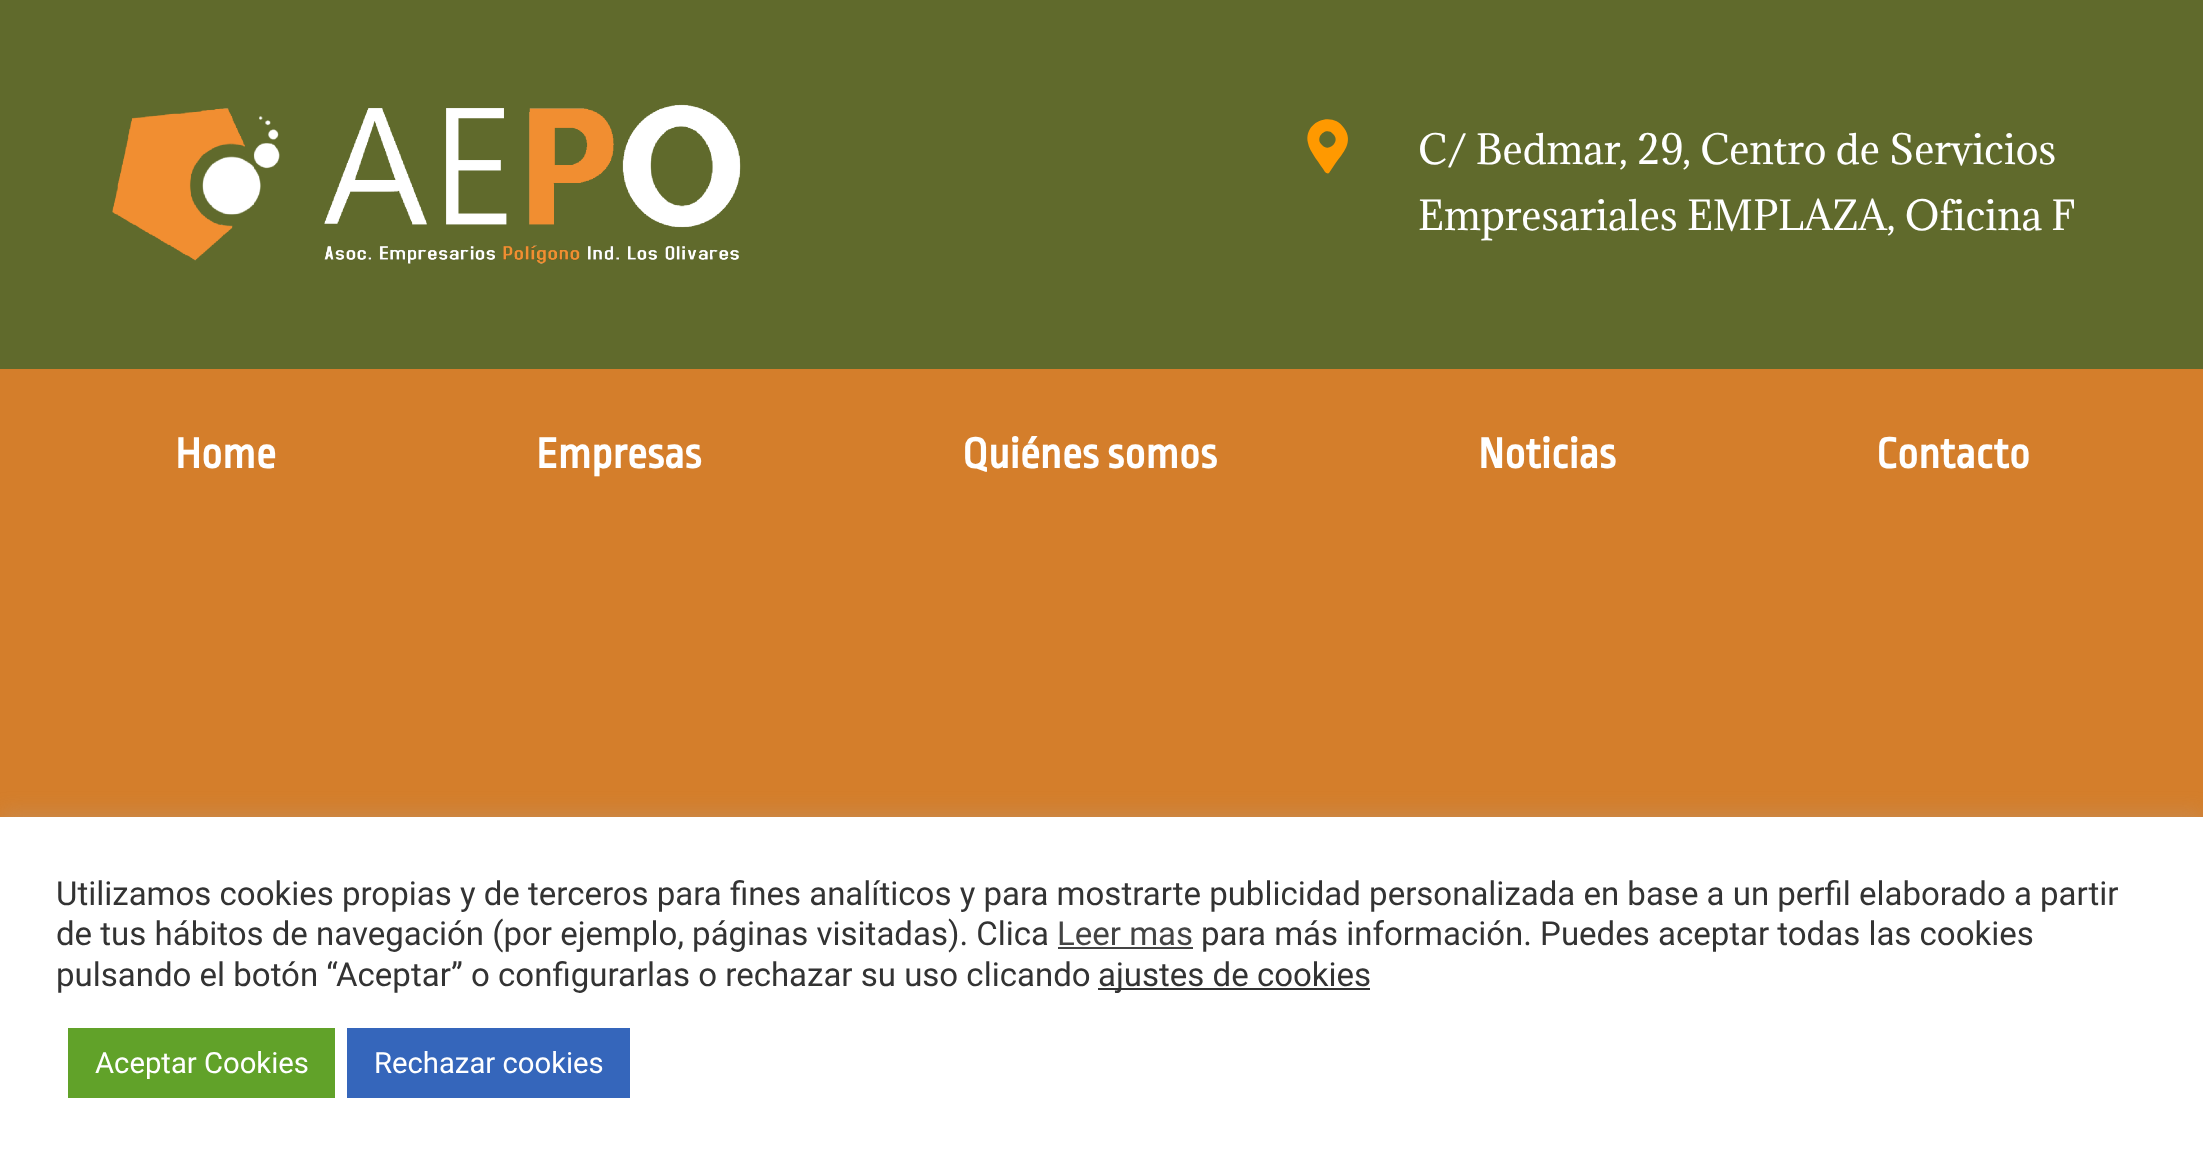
(async () => {
    const canvas = document.querySelector("canvas");
    canvas.width = 2203;
    canvas.height = 1165;
    const context = canvas.getContext("2d");
    context.miterLimit = 4;
    context.fontKerning = "normal";
    function write(s, x, y, font, color) {
        context.font = font;
        context.fillStyle = color;
        context.fillText(s, x, y);
    }
    function block(x, y, w, h, color) {
        context.fillStyle = color;
        context.fillRect(x, y, w, h);
    }
    async function photo(src, x, y, w, h) {
        const img = new Image();
        img.src = src;
        await img.decode();
        context.drawImage(img, x, y, w, h);
    }

    block(0, 0, 2203, 1165, "rgb(96, 106, 44)");
    await photo("media/1.png", 112, 104, 629, 160);
    context.fillStyle = "rgb(255, 153, 0)";
    context.beginPath();
    context.moveTo(1325, 172);
    context.bezierCurveTo(1321, 165, 1309, 151, 1308, 143);
    context.bezierCurveTo(1303, 122, 1332, 110, 1344, 128);
    context.bezierCurveTo(1354, 142, 1343, 153, 1335, 164);
    context.lineTo(1329, 173);
    context.bezierCurveTo(1328, 174, 1326, 173, 1325, 172);
    context.closePath();
    context.moveTo(1322, 145);
    context.bezierCurveTo(1329, 153, 1341, 141, 1333, 134);
    context.bezierCurveTo(1326, 126, 1314, 138, 1322, 145);
    context.closePath();
    context.fill();
    write("C/ Bedmar, 29, Centro de Servicios", 1418, 164, "38.25px Adamina", "rgb(255, 255, 255)");
    write("Empresariales EMPLAZA, Oficina F", 1418, 230, "38.25px Adamina", "rgb(255, 255, 255)");
    block(0, 369, 2203, 448, "rgb(212, 126, 43)");
    write("Home", 175, 468, "bold 45px Ropa Sans", "rgb(255, 255, 255)");
    write("Empresas", 536, 468, "bold 45px Ropa Sans", "rgb(255, 255, 255)");
    write("Quiénes somos", 962, 468, "bold 45px Ropa Sans", "rgb(255, 255, 255)");
    write("Noticias", 1478, 468, "bold 45px Ropa Sans", "rgb(255, 255, 255)");
    write("Contacto", 1876, 468, "bold 45px Ropa Sans", "rgb(255, 255, 255)");
    context.fillStyle = "rgba(172, 171, 171, 0.3)";
    context.filter = "blur(11px)";
    context.beginPath();
    context.rect(0, 815, 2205, 348);
    context.fill();
    context.filter = "none";
    block(0, 817, 2203, 348, "rgb(255, 255, 255)");
    write("Utilizamos cookies propias y de terceros para fines analíticos y para mostrarte publicidad personalizada en base a un perfil elaborado a partir", 56, 905, "33px Roboto", "rgb(51, 51, 51)");
    write("de tus hábitos de navegación (por ejemplo, páginas visitadas). Clica", 56, 945, "33px Roboto", "rgb(51, 51, 51)");
    write("Leer mas", 1057, 945, "33px Roboto", "rgb(68, 68, 68)");
    block(1058, 947, 135, 2, "rgb(68, 68, 68)");
    write("para más información. Puedes aceptar todas las cookies", 1201, 945, "33px Roboto", "rgb(51, 51, 51)");
    write("pulsando el botón “Aceptar” o configurarlas o rechazar su uso clicando", 56, 986, "33px Roboto", "rgb(51, 51, 51)");
    block(1098, 988, 272, 2, "rgb(51, 51, 51)");
    write("ajustes de cookies", 1098, 986, "33px Roboto", "rgb(51, 51, 51)");
    block(68, 1028, 267, 70, "rgb(97, 162, 41)");
    write("Aceptar Cookies", 95, 1073, "29.25px Roboto", "rgb(255, 255, 255)");
    block(347, 1028, 283, 70, "rgb(53, 102, 187)");
    write("Rechazar cookies", 374, 1073, "29.25px Roboto", "rgb(255, 255, 255)");
})();
